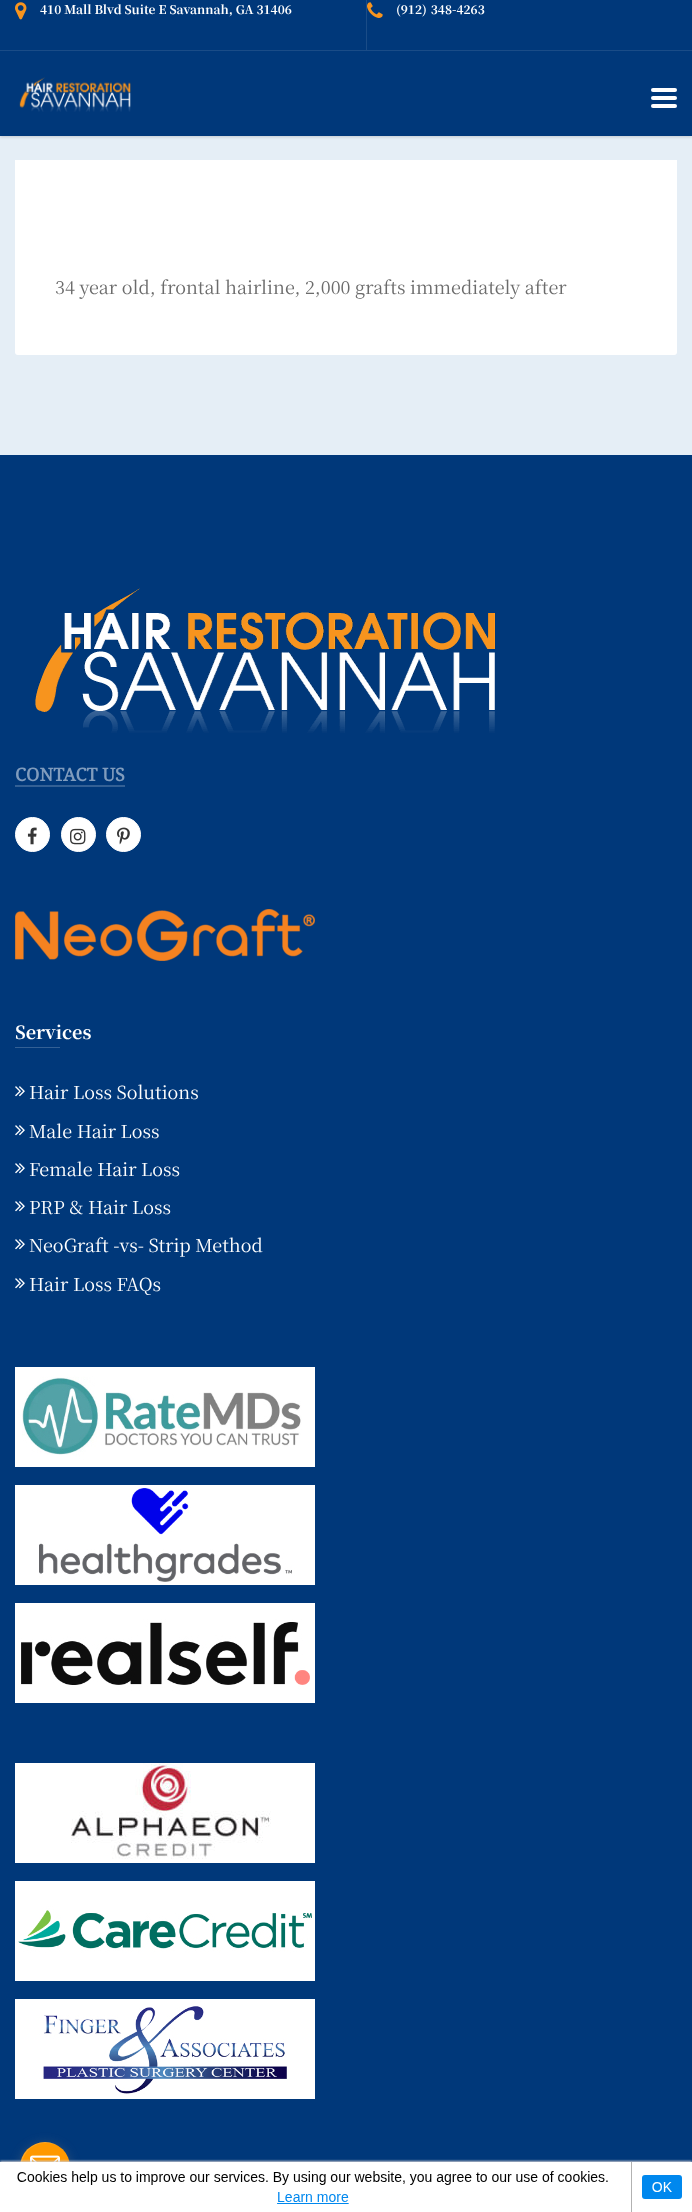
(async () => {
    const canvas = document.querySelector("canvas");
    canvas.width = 692;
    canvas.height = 2212;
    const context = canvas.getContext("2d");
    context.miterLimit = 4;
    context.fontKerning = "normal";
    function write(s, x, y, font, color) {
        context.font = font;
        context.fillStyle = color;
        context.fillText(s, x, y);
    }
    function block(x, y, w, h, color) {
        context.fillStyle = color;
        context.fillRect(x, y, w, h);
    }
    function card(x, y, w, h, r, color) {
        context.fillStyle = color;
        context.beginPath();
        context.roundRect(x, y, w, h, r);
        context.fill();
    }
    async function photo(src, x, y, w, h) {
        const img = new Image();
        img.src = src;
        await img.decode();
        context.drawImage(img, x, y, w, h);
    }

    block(0, 0, 692, 2212, "rgb(229, 238, 246)");
    context.fillStyle = "rgba(0, 0, 0, 0.15)";
    context.filter = "blur(1.5px)";
    context.beginPath();
    context.rect(0, 1, 692, 136);
    context.fill();
    context.filter = "none";
    block(0, 0, 692, 136, "rgb(0, 56, 122)");
    await photo("media/1.png", 15, 2, 12, 18);
    write("410 Mall Blvd Suite E Savannah, GA 31406", 40, 14, "bold 12px Noto Serif SC", "rgb(255, 255, 255)");
    block(366, 0, 1, 50, "rgb(26, 76, 135)");
    await photo("media/2.png", 367, 2, 16, 16);
    context.wordSpacing = "1px";
    write("(912) 348-4263", 396, 14, "bold 12px Noto Serif SC", "rgb(255, 255, 255)");
    block(0, 50, 692, 1, "rgb(26, 76, 135)");
    await photo("media/3.png", 19, 77, 112, 35);
    card(651, 96, 26, 4, 2, "rgb(255, 255, 255)");
    card(651, 88, 26, 4, 2, "rgb(255, 255, 255)");
    card(651, 104, 26, 4, 2, "rgb(255, 255, 255)");
    context.beginPath();
    context.roundRect(15, 160, 662, 195, [0, 0, 3, 3]);
    context.fill();
    context.wordSpacing = "0px";
    write("34 year old, frontal hairline, 2,000 grafts immediately after", 55, 294, "18px Noto Serif SC", "rgb(107, 107, 107)");
    block(0, 455, 692, 1707, "rgb(0, 56, 122)");
    await photo("media/4.png", 35, 588, 461, 145);
    block(15, 785, 110, 2, "rgb(51, 96, 149)");
    write("CONTACT US", 15, 781, "bold 18px Noto Serif", "rgb(128, 156, 189)");
    context.fillStyle = "rgb(255, 255, 255)";
    context.beginPath();
    context.arc(32.5, 834.5, 17, 0, Math.PI * 2);
    context.fill();
    context.strokeStyle = "rgb(255, 255, 255)";
    context.stroke();
    await photo("media/5.png", 27, 827, 10, 18);
    context.beginPath();
    context.arc(78.5, 834.5, 17, 0, Math.PI * 2);
    context.fill();
    context.stroke();
    await photo("media/6.png", 70, 828, 16, 17);
    context.beginPath();
    context.arc(123.5, 834.5, 17, 0, Math.PI * 2);
    context.fill();
    context.stroke();
    await photo("media/7.png", 117, 827, 13, 18);
    await photo("media/8.png", 15, 909, 300, 52);
    write("Services", 15, 1039, "bold 18px Noto Serif SC", "rgb(255, 255, 255)");
    block(15, 1047, 45, 1, "rgb(51, 96, 149)");
    await photo("media/9.png", 15, 1086, 10, 11);
    write("Hair Loss Solutions", 29, 1099, "18px Noto Serif SC", "rgb(255, 255, 255)");
    await photo("media/9.png", 15, 1125, 10, 11);
    write("Male Hair Loss", 29, 1138, "18px Noto Serif SC", "rgb(255, 255, 255)");
    await photo("media/9.png", 15, 1163, 10, 11);
    write("Female Hair Loss", 29, 1176, "18px Noto Serif SC", "rgb(255, 255, 255)");
    await photo("media/9.png", 15, 1201, 10, 11);
    write("PRP & Hair Loss", 29, 1214, "18px Noto Serif SC", "rgb(255, 255, 255)");
    await photo("media/9.png", 15, 1239, 10, 11);
    write("NeoGraft -vs- Strip Method", 29, 1252, "18px Noto Serif SC", "rgb(255, 255, 255)");
    await photo("media/9.png", 15, 1278, 10, 11);
    write("Hair Loss FAQs", 29, 1291, "18px Noto Serif SC", "rgb(255, 255, 255)");
    await photo("media/10.png", 15, 1367, 300, 100);
    await photo("media/11.png", 15, 1485, 300, 100);
    await photo("media/12.png", 15, 1603, 300, 100);
    await photo("media/13.png", 15, 1763, 300, 100);
    await photo("media/14.png", 15, 1881, 300, 100);
    await photo("media/15.png", 15, 1999, 300, 100);
    context.fillStyle = "rgba(128, 128, 128, 0.4)";
    context.filter = "blur(5.5px)";
    context.beginPath();
    context.roundRect(20, 2144, 50, 50, 25);
    context.fill();
    context.filter = "none";
    context.fillStyle = "rgb(255, 153, 0)";
    context.beginPath();
    context.arc(45, 2167, 25, 0, Math.PI * 2);
    context.fill();
    context.fillStyle = "rgba(255, 255, 255, 0.15)";
    context.beginPath();
    context.moveTo(46, 2143);
    context.bezierCurveTo(51, 2143, 55, 2144, 59, 2146);
    context.bezierCurveTo(35, 2131, 8, 2161, 25, 2183);
    context.bezierCurveTo(16, 2168, 23, 2143, 46, 2143);
    context.closePath();
    context.fill();
    await photo("media/16.png", 30, 2155, 30, 7);
    context.fillStyle = "rgb(208, 207, 212)";
    context.filter = "blur(1px)";
    context.beginPath();
    context.rect(0, 2161, 692, 50);
    context.fill();
    context.filter = "none";
    await photo("media/17.png", 0, 2162, 692, 50);
})();
